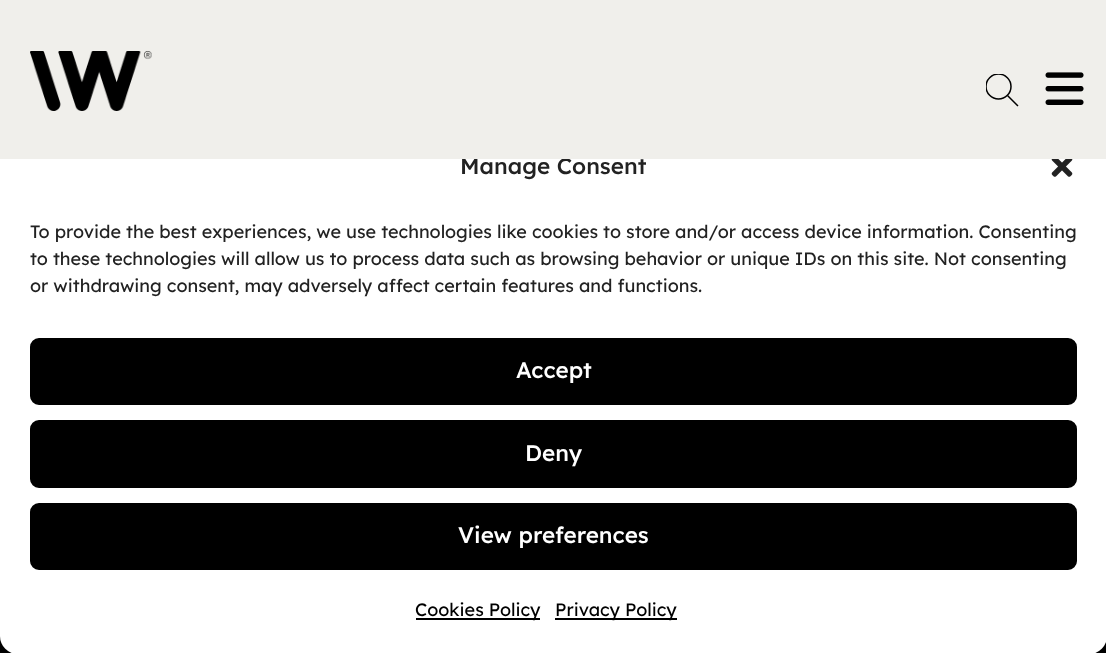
(async () => {
    const canvas = document.querySelector("canvas");
    canvas.width = 1106;
    canvas.height = 653;
    const context = canvas.getContext("2d");
    context.miterLimit = 4;
    context.fontKerning = "normal";
    function write(s, x, y, font, color) {
        context.font = font;
        context.fillStyle = color;
        context.fillText(s, x, y);
    }
    function block(x, y, w, h, color) {
        context.fillStyle = color;
        context.fillRect(x, y, w, h);
    }
    function card(x, y, w, h, r, color) {
        context.fillStyle = color;
        context.beginPath();
        context.roundRect(x, y, w, h, r);
        context.fill();
    }
    async function photo(src, x, y, w, h) {
        const img = new Image();
        img.src = src;
        await img.decode();
        context.drawImage(img, x, y, w, h);
    }

    block(0, 0, 1106, 653, "rgb(0, 0, 0)");
    card(0, 123, 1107, 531, 18, "rgb(255, 255, 255)");
    write("Manage Consent", 460, 174, "500 22.5px Lexend", "rgb(34, 34, 34)");
    block(0, 0, 1106, 159, "rgb(240, 239, 235)");
    await photo("media/1.png", 30, 51, 122, 60);
    context.save();
    context.beginPath();
    context.rect(986, 74, 33, 33);
    context.clip();
    context.beginPath();
    context.arc(998.5, 86.5, 12.5, 0, Math.PI * 2);
    context.strokeStyle = "rgb(0, 0, 0)";
    context.lineWidth = 1.5;
    context.stroke();
    context.restore();
    context.beginPath();
    context.moveTo(1007.5, 95.5);
    context.lineTo(1018, 106);
    context.strokeStyle = "rgb(0, 0, 0)";
    context.lineWidth = 1.5;
    context.stroke();
    await photo("media/2.png", 1045, 72, 39, 33);
    await photo("media/3.png", 1051, 159, 22, 18);
    write("To provide the best experiences, we use technologies like cookies to store and/or access device information. Consenting", 30, 238, "18px Lexend", "rgb(34, 34, 34)");
    write("to these technologies will allow us to process data such as browsing behavior or unique IDs on this site. Not consenting", 30, 265, "18px Lexend", "rgb(34, 34, 34)");
    write("or withdrawing consent, may adversely affect certain features and functions.", 30, 292, "18px Lexend", "rgb(34, 34, 34)");
    context.fillStyle = "rgb(0, 0, 0)";
    context.beginPath();
    context.roundRect(31, 339, 1045, 65, 8);
    context.fill();
    context.lineWidth = 2;
    context.stroke();
    write("Accept", 516, 378, "500 22.5px Lexend", "rgb(255, 255, 255)");
    context.fillStyle = "rgb(0, 0, 0)";
    context.beginPath();
    context.roundRect(31, 421, 1045, 66, 8);
    context.fill();
    context.stroke();
    write("Deny", 525, 461, "500 22.5px Lexend", "rgb(255, 255, 255)");
    context.fillStyle = "rgb(0, 0, 0)";
    context.beginPath();
    context.roundRect(31, 504, 1045, 65, 8);
    context.fill();
    context.stroke();
    write("View preferences", 458, 543, "500 22.5px Lexend", "rgb(255, 255, 255)");
    block(416, 618, 124, 2, "rgb(0, 0, 0)");
    write("Cookies Policy", 415, 616, "18px Lexend", "rgb(0, 0, 0)");
    block(555, 618, 122, 2, "rgb(0, 0, 0)");
    write("Privacy Policy", 555, 616, "18px Lexend", "rgb(0, 0, 0)");
})();
